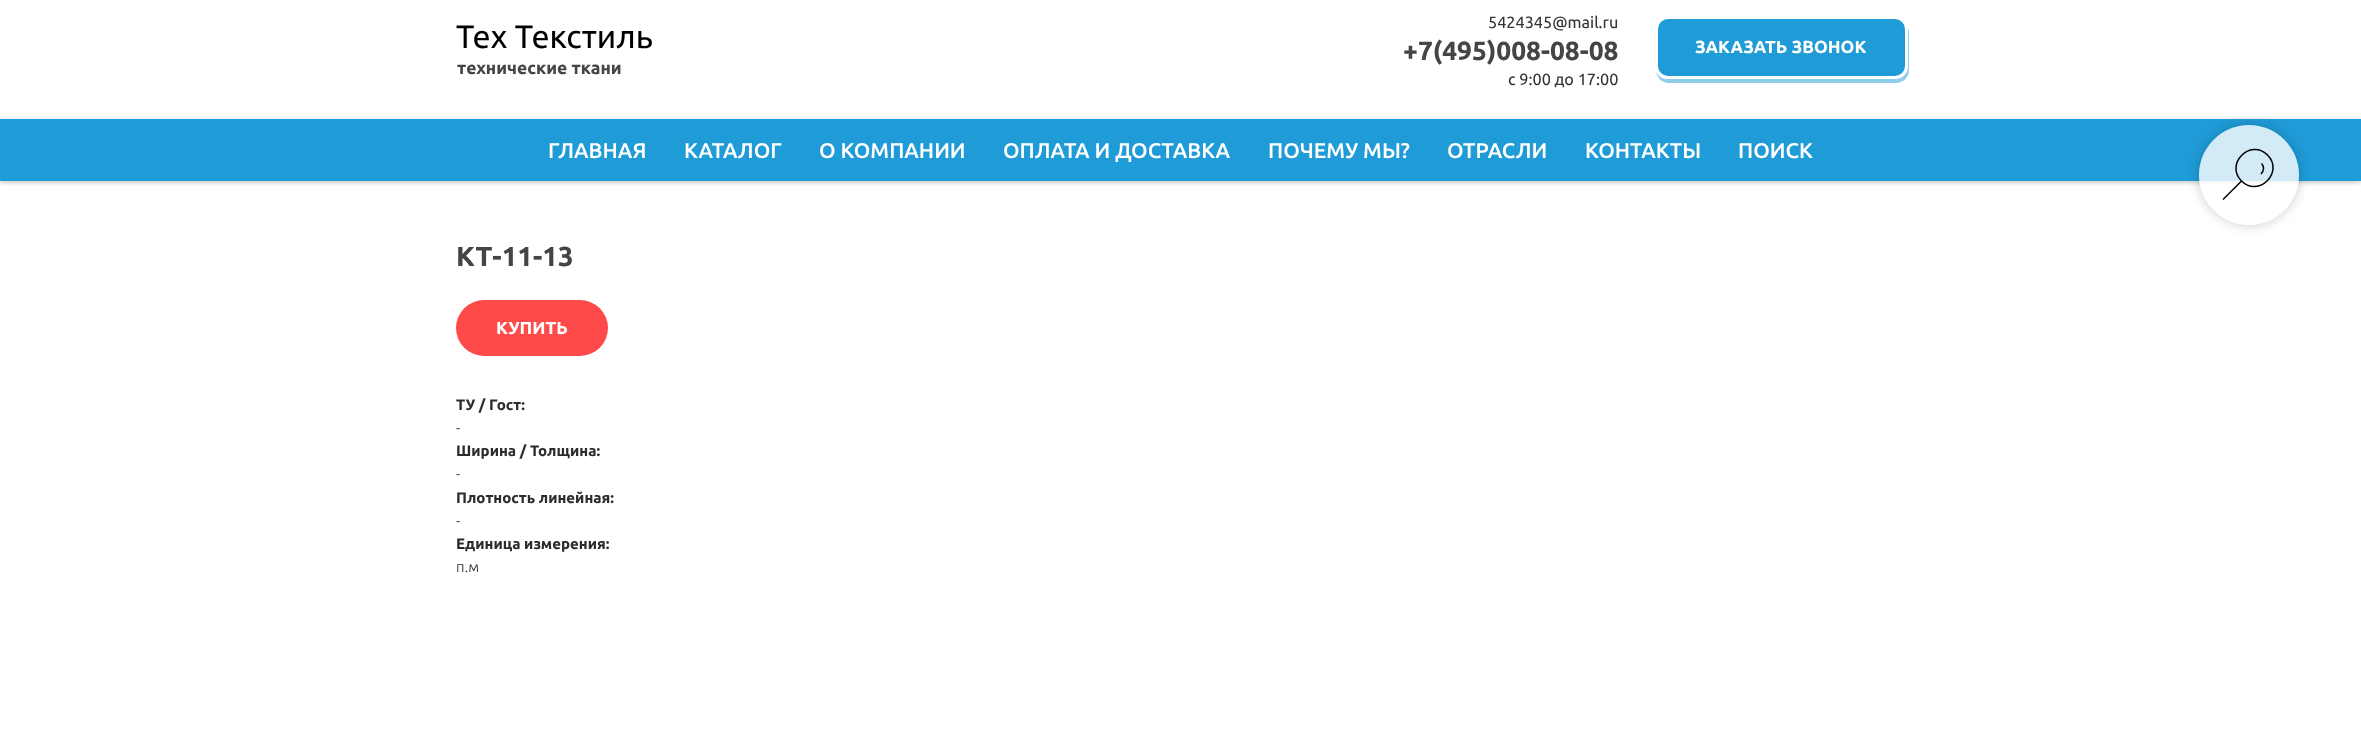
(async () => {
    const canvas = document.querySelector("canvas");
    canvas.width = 2361;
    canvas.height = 734;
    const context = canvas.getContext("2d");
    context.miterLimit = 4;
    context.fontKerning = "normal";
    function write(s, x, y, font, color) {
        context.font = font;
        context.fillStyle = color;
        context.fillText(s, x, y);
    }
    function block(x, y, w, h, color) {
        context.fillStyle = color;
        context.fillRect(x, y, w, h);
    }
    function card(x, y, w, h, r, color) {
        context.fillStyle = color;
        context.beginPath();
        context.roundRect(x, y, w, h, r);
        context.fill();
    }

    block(0, 0, 2361, 734, "rgb(255, 255, 255)");
    write("5424345@mail.ru", 1488, 28, "16.25px Ubuntu", "rgb(51, 51, 51)");
    write("Тех Текстиль", 456, 48, "32.5px Ubuntu", "rgb(0, 0, 0)");
    write("+7(495)008-08-08", 1403, 60, "bold 26.25px Ubuntu", "rgb(69, 69, 69)");
    context.fillStyle = "rgb(143, 205, 235)";
    context.beginPath();
    context.moveTo(1656, 71);
    context.bezierCurveTo(1657, 78, 1662, 83, 1669, 83);
    context.lineTo(1896, 83);
    context.bezierCurveTo(1903, 83, 1909, 77, 1909, 70);
    context.lineTo(1909, 33);
    context.bezierCurveTo(1909, 31, 1908, 28, 1907, 27);
    context.lineTo(1908, 66);
    context.bezierCurveTo(1908, 73, 1902, 79, 1895, 79);
    context.lineTo(1668, 79);
    context.bezierCurveTo(1662, 79, 1658, 76, 1656, 71);
    context.closePath();
    context.fill();
    context.fillStyle = "rgb(31, 155, 215)";
    context.beginPath();
    context.roundRect(1656.5, 17.5, 250, 60, 11.5);
    context.fill();
    context.strokeStyle = "rgb(255, 255, 255)";
    context.lineWidth = 3;
    context.stroke();
    write("ЗАКАЗАТЬ ЗВОНОК", 1695, 53, "bold 17.5px Ubuntu", "rgb(255, 255, 255)");
    write("технические ткани", 457, 74, "bold 17.5px Ubuntu", "rgb(69, 69, 69)");
    write("с 9:00 до 17:00", 1508, 85, "16.25px Ubuntu", "rgb(51, 51, 51)");
    context.fillStyle = "rgba(0, 0, 0, 0.2)";
    context.filter = "blur(2px)";
    context.beginPath();
    context.rect(0, 120, 2361, 63);
    context.fill();
    context.filter = "none";
    block(0, 119, 2361, 62, "rgb(31, 155, 215)");
    write("ГЛАВНАЯ", 548, 158, "500 21.25px Ubuntu", "rgb(255, 255, 255)");
    write("КАТАЛОГ", 684, 158, "500 21.25px Ubuntu", "rgb(255, 255, 255)");
    write("О КОМПАНИИ", 819, 158, "500 21.25px Ubuntu", "rgb(255, 255, 255)");
    write("ОПЛАТА И ДОСТАВКА", 1003, 158, "500 21.25px Ubuntu", "rgb(255, 255, 255)");
    write("ПОЧЕМУ МЫ?", 1268, 158, "500 21.25px Ubuntu", "rgb(255, 255, 255)");
    write("ОТРАСЛИ", 1447, 158, "500 21.25px Ubuntu", "rgb(255, 255, 255)");
    write("КОНТАКТЫ", 1585, 158, "500 21.25px Ubuntu", "rgb(255, 255, 255)");
    write("ПОИСК", 1738, 158, "500 21.25px Ubuntu", "rgb(255, 255, 255)");
    context.save();
    context.beginPath();
    context.moveTo(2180, 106);
    context.lineTo(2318, 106);
    context.lineTo(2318, 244);
    context.lineTo(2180, 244);
    context.closePath();
    context.moveTo(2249, 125);
    context.bezierCurveTo(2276.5, 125, 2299, 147.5, 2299, 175);
    context.bezierCurveTo(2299, 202.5, 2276.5, 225, 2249, 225);
    context.bezierCurveTo(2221.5, 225, 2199, 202.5, 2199, 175);
    context.bezierCurveTo(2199, 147.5, 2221.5, 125, 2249, 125);
    context.closePath();
    context.clip("evenodd");
    context.fillStyle = "rgba(0, 0, 0, 0.2)";
    context.filter = "blur(6px)";
    context.beginPath();
    context.roundRect(2199, 125, 100, 100, 50);
    context.fill();
    context.filter = "none";
    context.restore();
    context.fillStyle = "rgba(255, 255, 255, 0.8)";
    context.beginPath();
    context.arc(2249, 175, 50, 0, Math.PI * 2);
    context.fill();
    context.beginPath();
    context.moveTo(2223.5, 199);
    context.lineTo(2241, 181.5);
    context.strokeStyle = "rgb(0, 0, 0)";
    context.lineWidth = 1.5;
    context.lineCap = "square";
    context.stroke();
    context.beginPath();
    context.moveTo(2267.5, 155);
    context.bezierCurveTo(2284.5, 172, 2258.5, 198, 2241.5, 181);
    context.bezierCurveTo(2224.5, 164, 2250.5, 138, 2267.5, 155);
    context.closePath();
    context.moveTo(2261.5, 163.5);
    context.bezierCurveTo(2264.5, 166.5, 2264, 171, 2261, 174);
    context.lineCap = "butt";
    context.stroke();
    write("КТ-11-13", 456, 266, "bold 27.5px Ubuntu", "rgb(69, 69, 69)");
    card(456, 300, 152, 56, 28, "rgb(255, 74, 74)");
    write("КУПИТЬ", 496, 334, "bold 17.5px Ubuntu", "rgb(255, 255, 255)");
    write("ТУ / Гост:", 456, 410, "bold 15px Ubuntu", "rgb(44, 44, 44)");
    write("-", 456, 433, "300 15px Ubuntu", "rgb(44, 44, 44)");
    write("Ширина / Толщина:", 456, 456, "bold 15px Ubuntu", "rgb(44, 44, 44)");
    write("-", 456, 479, "300 15px Ubuntu", "rgb(44, 44, 44)");
    write("Плотность линейная:", 456, 503, "bold 15px Ubuntu", "rgb(44, 44, 44)");
    write("-", 456, 526, "300 15px Ubuntu", "rgb(44, 44, 44)");
    write("Единица измерения:", 456, 549, "bold 15px Ubuntu", "rgb(44, 44, 44)");
    write("п.м", 456, 572, "300 15px Ubuntu", "rgb(44, 44, 44)");
})();
